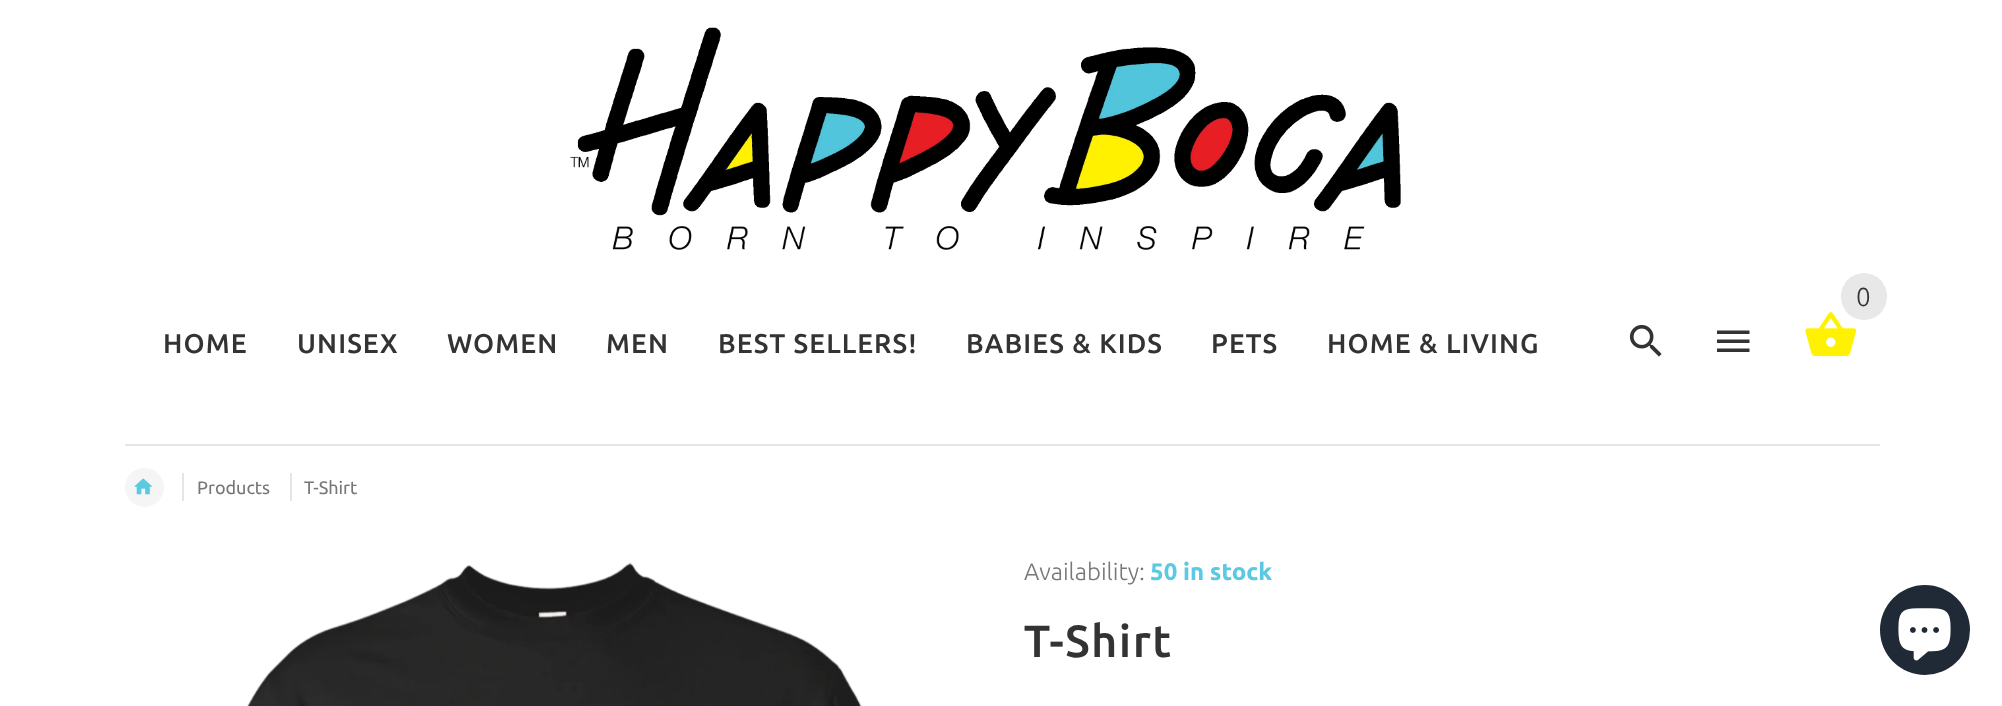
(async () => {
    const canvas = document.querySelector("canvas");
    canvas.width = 2002;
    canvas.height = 706;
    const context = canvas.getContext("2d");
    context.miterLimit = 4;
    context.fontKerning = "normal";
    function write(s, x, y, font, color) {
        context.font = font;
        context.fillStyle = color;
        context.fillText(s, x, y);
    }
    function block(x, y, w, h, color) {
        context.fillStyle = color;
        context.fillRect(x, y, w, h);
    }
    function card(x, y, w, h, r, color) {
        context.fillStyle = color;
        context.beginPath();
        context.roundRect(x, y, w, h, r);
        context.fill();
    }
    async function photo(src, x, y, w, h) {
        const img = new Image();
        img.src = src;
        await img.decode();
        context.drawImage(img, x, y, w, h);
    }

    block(0, 0, 2002, 706, "rgb(255, 255, 255)");
    await photo("media/1.png", 570, 27, 831, 223);
    await photo("media/2.png", 1805, 312, 52, 45);
    card(1841, 273, 46, 47, 23, "rgb(232, 232, 232)");
    write("0", 1856, 306, "300 26px Ubuntu", "rgb(51, 51, 51)");
    await photo("media/3.png", 1629, 324, 33, 33);
    context.beginPath();
    context.moveTo(1717, 330.5);
    context.lineTo(1749.5, 330.5);
    context.lineTo(1749.5, 334);
    context.lineTo(1717, 334);
    context.closePath();
    context.moveTo(1717, 343);
    context.lineTo(1717, 339.5);
    context.lineTo(1749.5, 339.5);
    context.lineTo(1749.5, 343);
    context.closePath();
    context.moveTo(1717, 352);
    context.lineTo(1717, 348.5);
    context.lineTo(1749.5, 348.5);
    context.lineTo(1749.5, 352);
    context.closePath();
    context.fill();
    context.letterSpacing = "1.1px";
    write("HOME", 163, 353, "500 27px Ubuntu", "rgb(51, 51, 51)");
    write("UNISEX", 297, 353, "500 27px Ubuntu", "rgb(51, 51, 51)");
    write("WOMEN", 447, 353, "500 27px Ubuntu", "rgb(51, 51, 51)");
    write("MEN", 606, 353, "500 27px Ubuntu", "rgb(51, 51, 51)");
    write("BEST SELLERS!", 718, 353, "500 27px Ubuntu", "rgb(51, 51, 51)");
    write("BABIES & KIDS", 966, 353, "500 27px Ubuntu", "rgb(51, 51, 51)");
    write("PETS", 1211, 353, "500 27px Ubuntu", "rgb(51, 51, 51)");
    write("HOME & LIVING", 1327, 353, "500 27px Ubuntu", "rgb(51, 51, 51)");
    block(125, 444, 1755, 2, "rgb(229, 229, 229)");
    context.fillStyle = "rgb(245, 245, 245)";
    context.beginPath();
    context.arc(144.5, 487.5, 19.5, 0, Math.PI * 2);
    context.fill();
    await photo("media/4.png", 134, 478, 19, 17);
    block(182, 473, 2, 28, "rgb(229, 229, 229)");
    context.letterSpacing = "0px";
    write("Products", 197, 494, "18px Ubuntu", "rgb(119, 119, 119)");
    block(290, 473, 2, 28, "rgb(229, 229, 229)");
    write("T-Shirt", 304, 494, "18px Ubuntu", "rgb(119, 119, 119)");
    await photo("media/5.png", 247, 562, 615, 144);
    write("Availability:", 1024, 580, "300 24px Ubuntu", "rgb(119, 119, 119)");
    write("50 in stock", 1150, 580, "bold 24px Ubuntu", "rgb(90, 201, 225)");
    context.letterSpacing = "1.5px";
    write("T-Shirt", 1024, 657, "500 45px Ubuntu", "rgb(51, 51, 51)");
    context.fillStyle = "rgb(32, 42, 54)";
    context.beginPath();
    context.arc(1925, 630, 45, 0, Math.PI * 2);
    context.fill();
    await photo("media/6.png", 1898, 608, 53, 53);
})();
